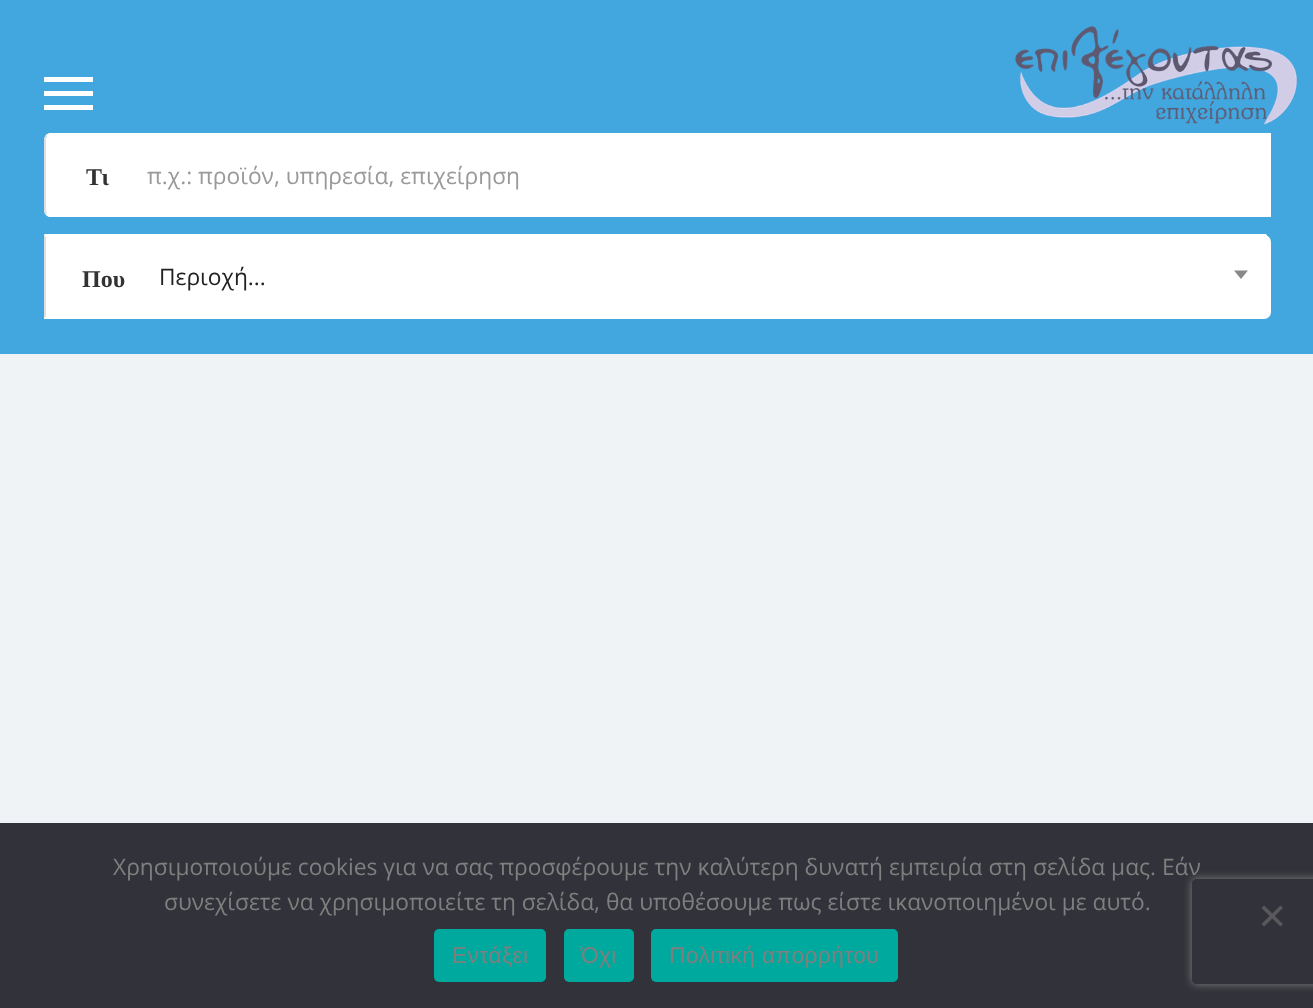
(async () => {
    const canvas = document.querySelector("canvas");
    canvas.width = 1313;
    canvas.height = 1008;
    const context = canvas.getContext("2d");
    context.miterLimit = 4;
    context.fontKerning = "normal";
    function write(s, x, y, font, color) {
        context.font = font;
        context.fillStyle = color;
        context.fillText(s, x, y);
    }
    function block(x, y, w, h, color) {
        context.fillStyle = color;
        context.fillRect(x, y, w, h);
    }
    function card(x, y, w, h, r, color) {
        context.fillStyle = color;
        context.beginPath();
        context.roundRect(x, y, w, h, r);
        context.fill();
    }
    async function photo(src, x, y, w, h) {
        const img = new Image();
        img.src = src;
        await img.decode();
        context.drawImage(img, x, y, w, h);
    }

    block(0, 0, 1313, 1008, "rgb(239, 243, 246)");
    block(0, 0, 1313, 354, "rgb(66, 167, 223)");
    await photo("media/1.png", 1015, 26, 282, 99);
    block(44, 77, 49, 5, "rgb(255, 255, 255)");
    block(44, 91, 49, 5, "rgb(255, 255, 255)");
    block(44, 105, 49, 5, "rgb(255, 255, 255)");
    context.beginPath();
    context.roundRect(44, 133, 1227, 84, [7, 0, 0, 7]);
    context.fill();
    context.beginPath();
    context.moveTo(51, 133);
    context.bezierCurveTo(49, 133, 47, 134, 46, 135);
    context.lineTo(47, 137);
    context.bezierCurveTo(48, 136, 49, 135, 51, 135);
    context.lineTo(1268, 135);
    context.lineTo(1270, 133);
    context.closePath();
    context.fill();
    context.beginPath();
    context.moveTo(51, 217);
    context.lineTo(1270, 217);
    context.lineTo(1268, 215);
    context.lineTo(51, 215);
    context.bezierCurveTo(49, 215, 48, 214, 47, 213);
    context.lineTo(46, 215);
    context.bezierCurveTo(47, 216, 49, 217, 51, 217);
    context.closePath();
    context.fill();
    context.fillStyle = "rgb(222, 222, 222)";
    context.beginPath();
    context.moveTo(46, 135);
    context.bezierCurveTo(45, 136, 44, 138, 44, 140);
    context.lineTo(44, 210);
    context.bezierCurveTo(44, 212, 45, 214, 46, 215);
    context.lineTo(47, 213);
    context.lineTo(46, 211);
    context.lineTo(46, 139);
    context.lineTo(47, 137);
    context.closePath();
    context.fill();
    write("Τι", 86, 185, "bold 24px Liberation Serif", "rgb(51, 51, 51)");
    write("π.χ.: προϊόν, υπηρεσία, επιχείρηση", 147, 184, "22.75px Open Sans", "rgb(153, 153, 153)");
    context.fillStyle = "rgb(255, 255, 255)";
    context.beginPath();
    context.roundRect(44, 235, 1227, 84, [0, 7, 7, 0]);
    context.fill();
    context.beginPath();
    context.moveTo(46, 236);
    context.lineTo(46, 237);
    context.lineTo(44, 234);
    context.lineTo(1266, 234);
    context.lineTo(1268, 237);
    context.lineTo(1267, 238);
    context.bezierCurveTo(1266, 237, 1265, 236, 1264, 236);
    context.closePath();
    context.fill();
    context.fillStyle = "rgb(222, 222, 222)";
    context.beginPath();
    context.moveTo(44, 318);
    context.lineTo(44, 235);
    context.lineTo(46, 237);
    context.lineTo(46, 316);
    context.closePath();
    context.fill();
    write("Που", 82, 287, "bold 24px Liberation Serif", "rgb(51, 51, 51)");
    write("Περιοχή...", 159, 285, "22.75px Open Sans", "rgb(34, 34, 34)");
    context.fillStyle = "rgb(136, 136, 136)";
    context.beginPath();
    context.moveTo(1234, 270.5);
    context.lineTo(1248, 270.5);
    context.lineTo(1241, 279);
    context.closePath();
    context.fill();
    block(0, 823, 1313, 185, "rgb(50, 50, 58)");
    write("Χρησιμοποιούμε cookies για να σας προσφέρουμε την καλύτερη δυνατή εμπειρία στη σελίδα μας. Εάν", 113, 875, "22.75px Open Sans", "rgb(127, 127, 127)");
    write("συνεχίσετε να χρησιμοποιείτε τη σελίδα, θα υποθέσουμε πως είστε ικανοποιημένοι με αυτό.", 164, 910, "22.75px Open Sans", "rgb(127, 127, 127)");
    context.fillStyle = "rgb(89, 89, 93)";
    context.beginPath();
    context.moveTo(1280.5, 905.5);
    context.lineTo(1283, 908);
    context.lineTo(1264, 926.5);
    context.lineTo(1261.5, 924);
    context.closePath();
    context.fill();
    context.beginPath();
    context.moveTo(1261.5, 908);
    context.lineTo(1264, 905.5);
    context.lineTo(1283, 924);
    context.lineTo(1280.5, 926.5);
    context.closePath();
    context.fill();
    card(434, 929, 112, 53, 5, "rgb(0, 169, 157)");
    context.letterSpacing = "0.4px";
    write("Εντάξει", 452, 963, "22.75px Liberation Sans", "rgb(127, 127, 127)");
    card(564, 929, 70, 53, 5, "rgb(0, 169, 157)");
    write("Όχι", 581, 963, "22.75px Liberation Sans", "rgb(127, 127, 127)");
    card(651, 929, 247, 53, 5, "rgb(0, 169, 157)");
    write("Πολιτική απορρήτου", 669, 963, "22.75px Liberation Sans", "rgb(127, 127, 127)");
    context.save();
    context.beginPath();
    context.moveTo(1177, 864);
    context.lineTo(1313, 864);
    context.lineTo(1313, 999);
    context.lineTo(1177, 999);
    context.closePath();
    context.moveTo(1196, 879);
    context.lineTo(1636, 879);
    context.bezierCurveTo(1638, 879, 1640, 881, 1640, 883);
    context.lineTo(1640, 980);
    context.bezierCurveTo(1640, 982, 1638, 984, 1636, 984);
    context.lineTo(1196, 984);
    context.bezierCurveTo(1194, 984, 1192, 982, 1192, 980);
    context.lineTo(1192, 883);
    context.bezierCurveTo(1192, 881, 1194, 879, 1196, 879);
    context.closePath();
    context.clip("evenodd");
    context.fillStyle = "rgb(128, 128, 128)";
    context.filter = "blur(4.5px)";
    context.beginPath();
    context.roundRect(1192, 879, 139, 105, 4);
    context.fill();
    context.filter = "none";
    context.restore();
})();
